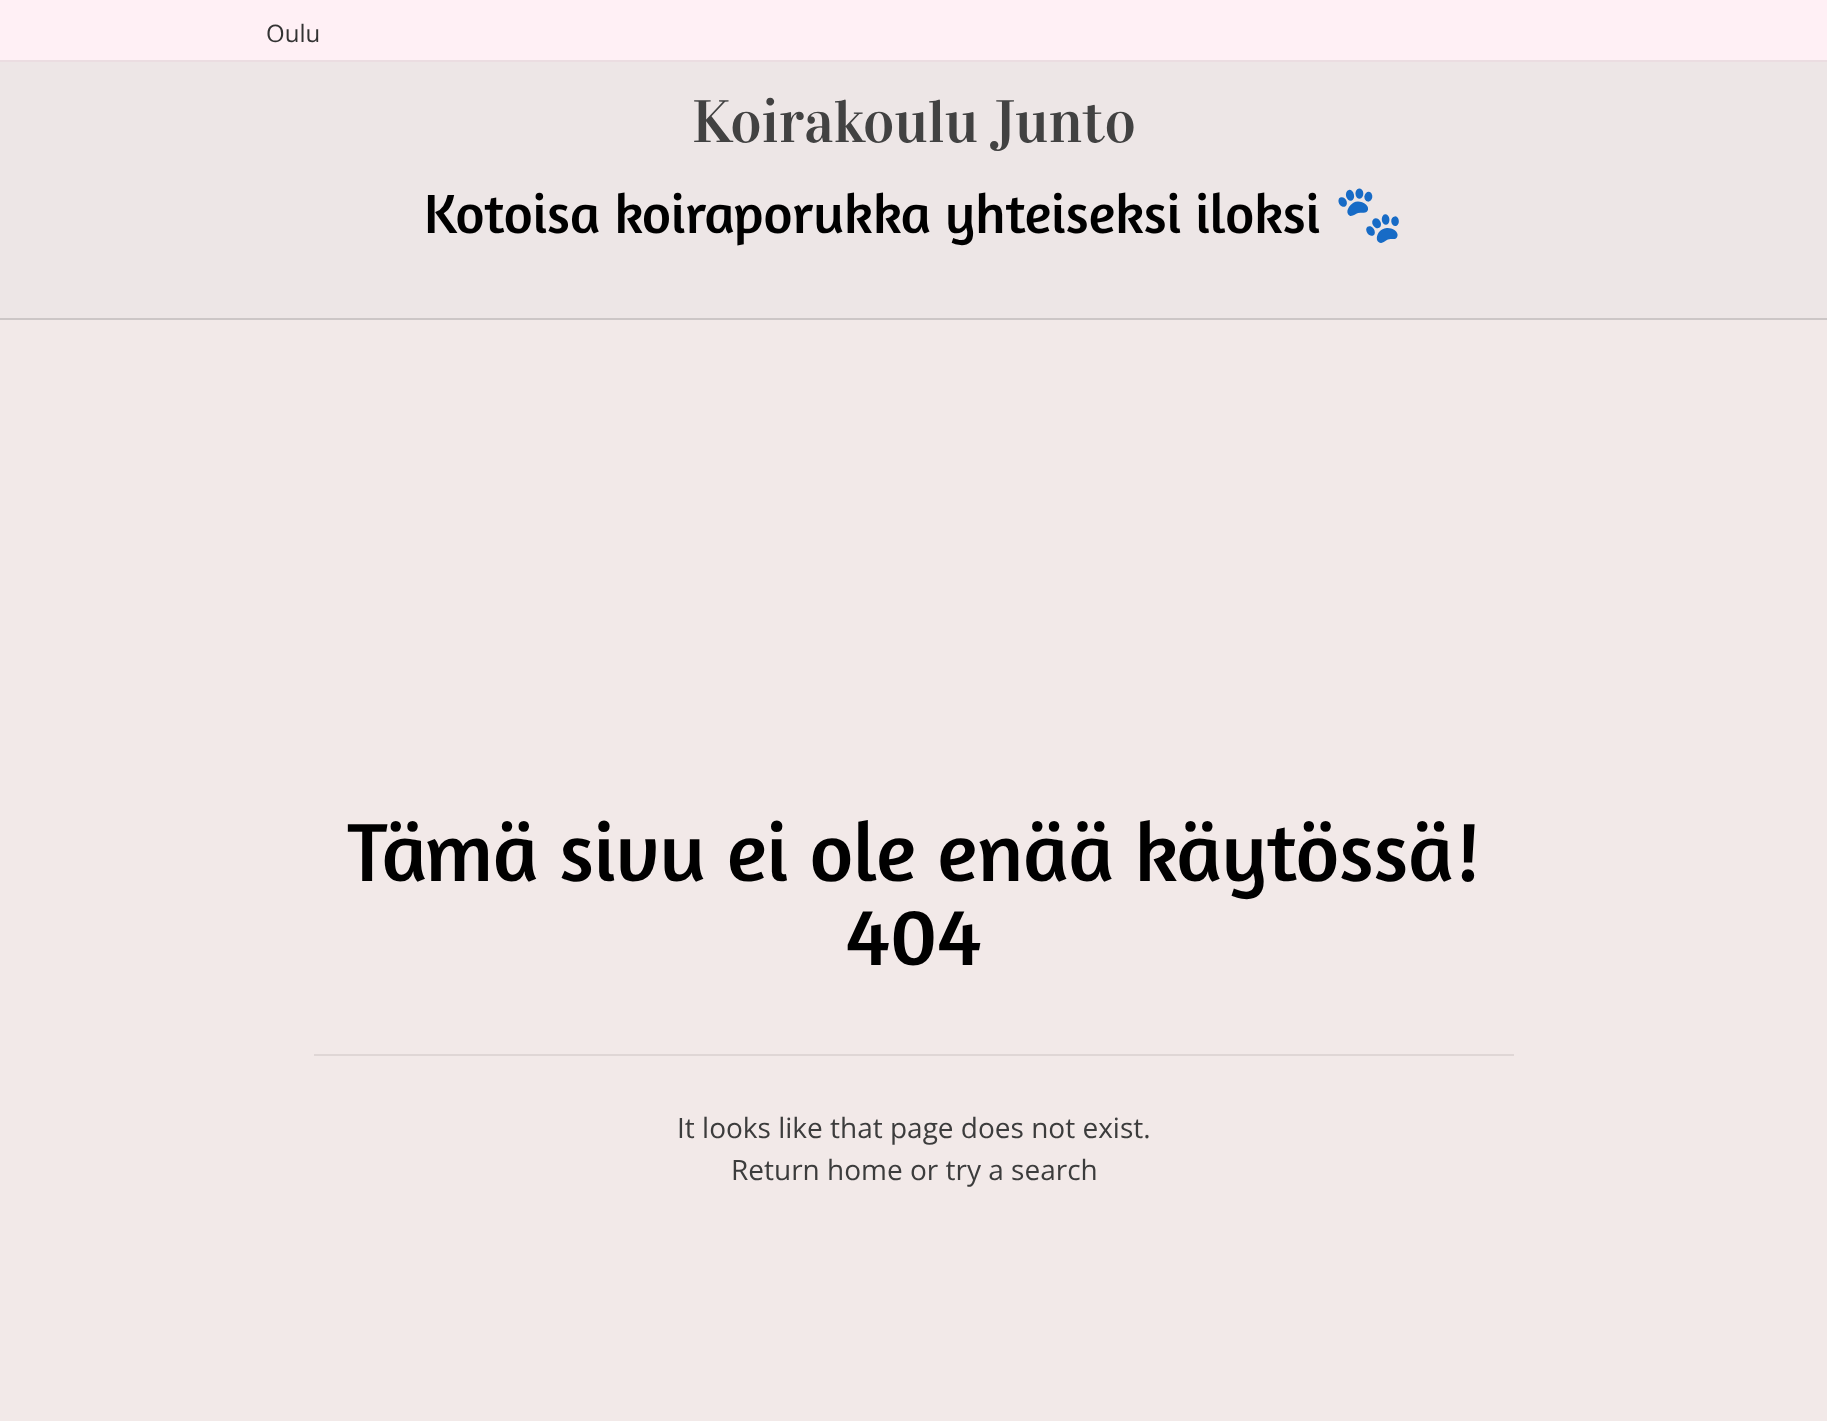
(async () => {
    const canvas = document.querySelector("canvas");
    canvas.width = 1827;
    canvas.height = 1421;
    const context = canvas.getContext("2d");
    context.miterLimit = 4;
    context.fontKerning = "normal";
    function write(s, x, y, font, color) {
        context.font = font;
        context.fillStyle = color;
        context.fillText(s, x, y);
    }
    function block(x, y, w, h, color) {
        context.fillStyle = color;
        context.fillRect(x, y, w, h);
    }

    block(0, 0, 1827, 1421, "rgb(242, 233, 232)");
    block(0, 62, 1827, 256, "rgb(237, 230, 230)");
    block(0, 318, 1827, 2, "rgb(204, 198, 198)");
    block(0, 0, 1827, 60, "rgb(255, 240, 245)");
    block(0, 60, 1827, 2, "rgb(235, 221, 225)");
    write("Oulu", 266, 42, "24px Open Sans", "rgb(51, 51, 51)");
    write("Koirakoulu Junto", 692, 142, "60px Vidaloka", "rgb(66, 66, 66)");
    write("Kotoisa koiraporukka yhteiseksi iloksi", 424, 233, "56px Amaranth", "rgb(0, 0, 0)");
    write("🐾", 1334, 233, "56px Noto Color Emoji", "rgb(0, 0, 0)");
    block(314, 1054, 1200, 2, "rgb(223, 214, 213)");
    write("Tämä sivu ei ole enää käytössä!", 347, 881, "84px Amaranth", "rgb(0, 0, 0)");
    write("404", 846, 965, "84px Amaranth", "rgb(0, 0, 0)");
    write("It looks like that page does not exist.", 677, 1138, "28px Open Sans", "rgb(60, 60, 60)");
    write("Return home or try a search", 731, 1180, "28px Open Sans", "rgb(60, 60, 60)");
})();
